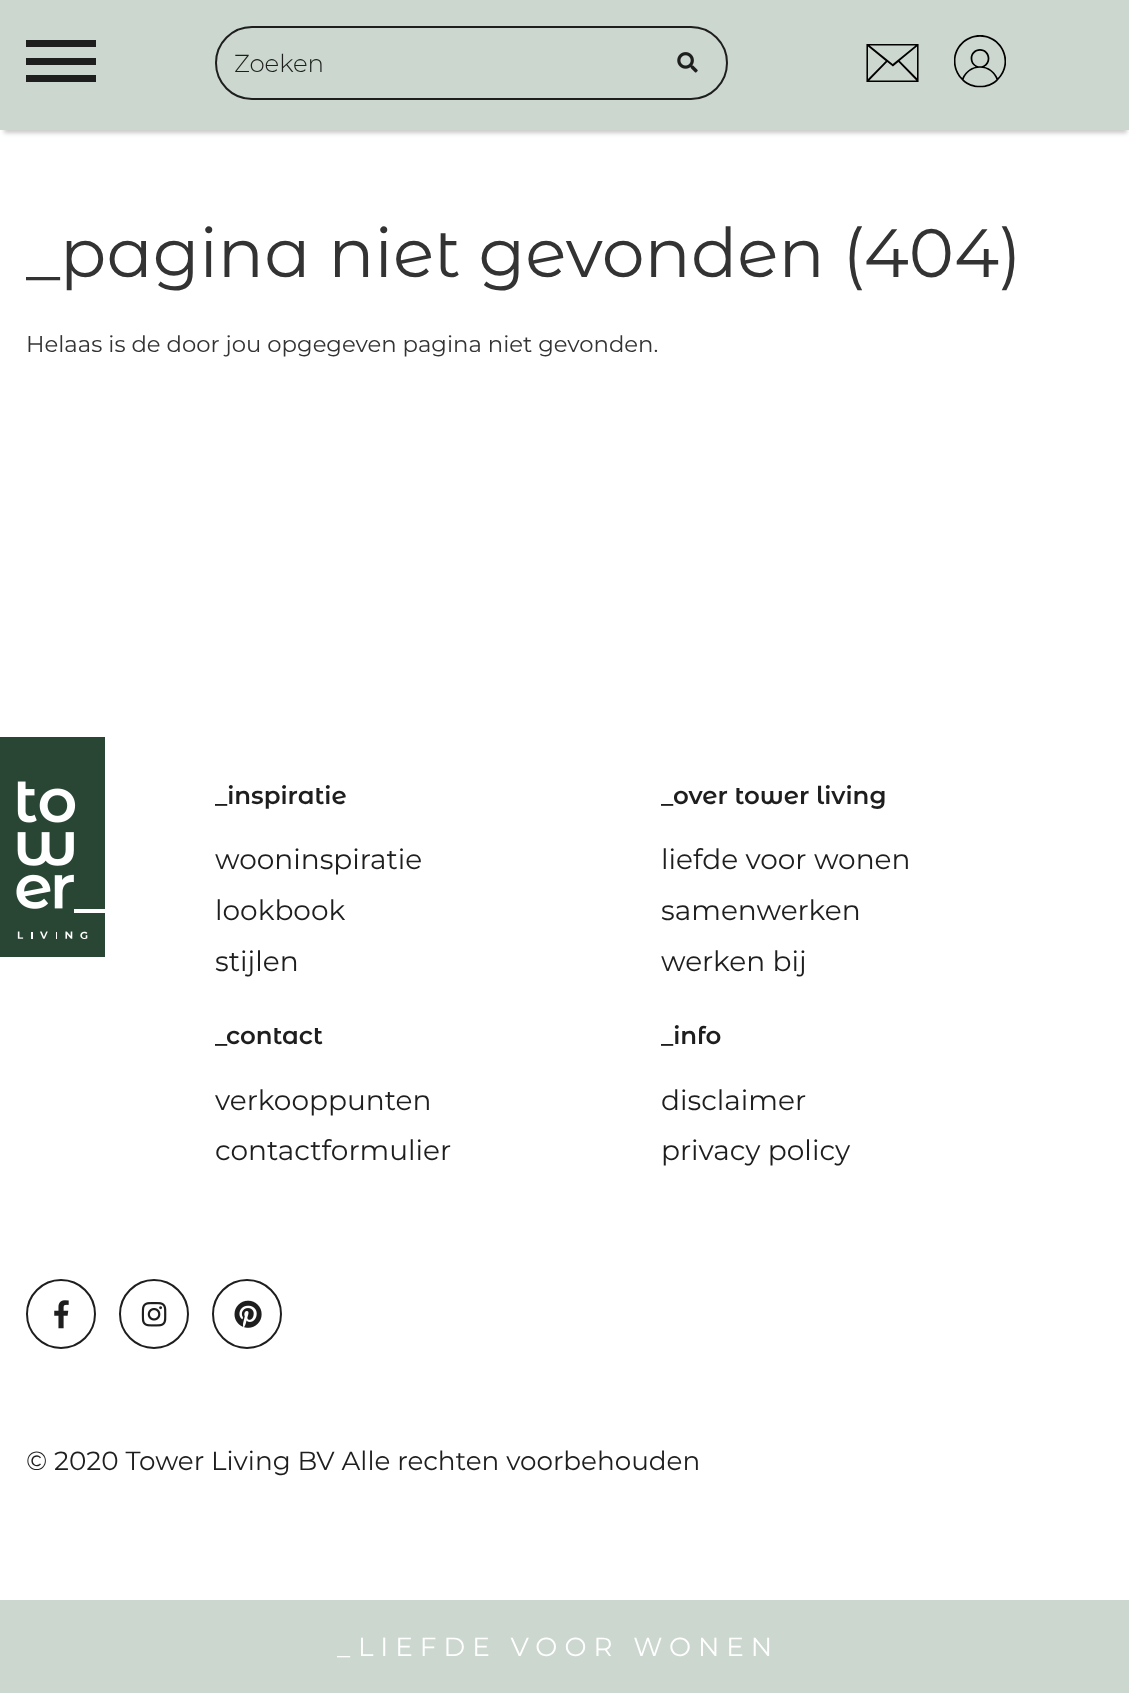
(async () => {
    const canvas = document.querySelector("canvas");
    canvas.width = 1129;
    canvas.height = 1693;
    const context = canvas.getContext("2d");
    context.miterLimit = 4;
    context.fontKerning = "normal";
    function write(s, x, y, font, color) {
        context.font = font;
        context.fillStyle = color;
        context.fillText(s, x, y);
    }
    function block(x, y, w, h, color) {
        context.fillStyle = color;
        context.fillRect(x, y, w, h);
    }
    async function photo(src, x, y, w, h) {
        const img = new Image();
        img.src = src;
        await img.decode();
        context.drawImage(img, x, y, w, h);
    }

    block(0, 0, 1129, 1693, "rgb(255, 255, 255)");
    context.fillStyle = "rgba(0, 0, 0, 0.21)";
    context.filter = "blur(2px)";
    context.beginPath();
    context.rect(4, 11, 1123, 122);
    context.fill();
    context.filter = "none";
    block(0, 0, 1129, 130, "rgb(203, 215, 207)");
    block(26, 40, 70, 7, "rgb(30, 30, 30)");
    block(26, 58, 70, 7, "rgb(30, 30, 30)");
    block(26, 75, 70, 7, "rgb(30, 30, 30)");
    context.beginPath();
    context.roundRect(216, 27, 511, 72, 36);
    context.strokeStyle = "rgb(30, 30, 30)";
    context.lineWidth = 2;
    context.stroke();
    write("Zoeken", 234, 72, "300 24.5px Montserrat", "rgb(30, 30, 30)");
    await photo("media/1.png", 677, 52, 21, 21);
    await photo("media/2.png", 866, 44, 53, 38);
    await photo("media/3.png", 954, 35, 52, 53);
    await photo("media/4.png", 0, 737, 105, 220);
    write("_pagina niet gevonden (404)", 26, 277, "68.25px Montserrat Alternates", "rgb(51, 51, 51)");
    write("Helaas is de door jou opgegeven pagina niet gevonden.", 26, 352, "22.75px Montserrat", "rgb(51, 51, 51)");
    write("_inspiratie", 215, 804, "600 24.5px Montserrat Alternates", "rgb(30, 30, 30)");
    write("wooninspiratie", 215, 869, "28px Montserrat", "rgb(30, 30, 30)");
    write("lookbook", 215, 920, "28px Montserrat", "rgb(30, 30, 30)");
    write("stijlen", 215, 971, "28px Montserrat", "rgb(30, 30, 30)");
    write("_", 661, 804, "600 24.5px Montserrat Alternates", "rgb(30, 30, 30)");
    write("over tower living", 673, 804, "600 24.5px Montserrat Alternates", "rgb(30, 30, 30)");
    write("liefde voor wonen", 661, 869, "28px Montserrat", "rgb(30, 30, 30)");
    write("samenwerken", 661, 920, "28px Montserrat", "rgb(30, 30, 30)");
    write("werken bij", 661, 971, "28px Montserrat", "rgb(30, 30, 30)");
    write("_", 215, 1044, "600 24.5px Montserrat Alternates", "rgb(30, 30, 30)");
    write("contact", 226, 1044, "600 24.5px Montserrat Alternates", "rgb(30, 30, 30)");
    write("verkooppunten", 215, 1110, "28px Montserrat", "rgb(30, 30, 30)");
    write("contactformulier", 215, 1160, "28px Montserrat", "rgb(30, 30, 30)");
    write("_info", 661, 1044, "600 24.5px Montserrat Alternates", "rgb(30, 30, 30)");
    write("disclaimer", 661, 1110, "28px Montserrat", "rgb(30, 30, 30)");
    write("privacy policy", 661, 1160, "28px Montserrat", "rgb(30, 30, 30)");
    context.beginPath();
    context.arc(61, 1314, 34, 0, Math.PI * 2);
    context.stroke();
    await photo("media/5.png", 54, 1300, 15, 29);
    context.beginPath();
    context.arc(154, 1314, 34, 0, Math.PI * 2);
    context.stroke();
    await photo("media/6.png", 141, 1302, 26, 25);
    context.beginPath();
    context.arc(247, 1314, 34, 0, Math.PI * 2);
    context.stroke();
    await photo("media/7.png", 234, 1300, 28, 28);
    write("© 2020 Tower Living BV Alle rechten voorbehouden", 26, 1470, "26.25px Montserrat", "rgb(30, 30, 30)");
    block(0, 1600, 1129, 93, "rgb(203, 215, 207)");
    context.letterSpacing = "7px";
    write("_LIEFDE VOOR WONEN", 337, 1656, "26.25px Montserrat", "rgb(255, 255, 255)");
})();
